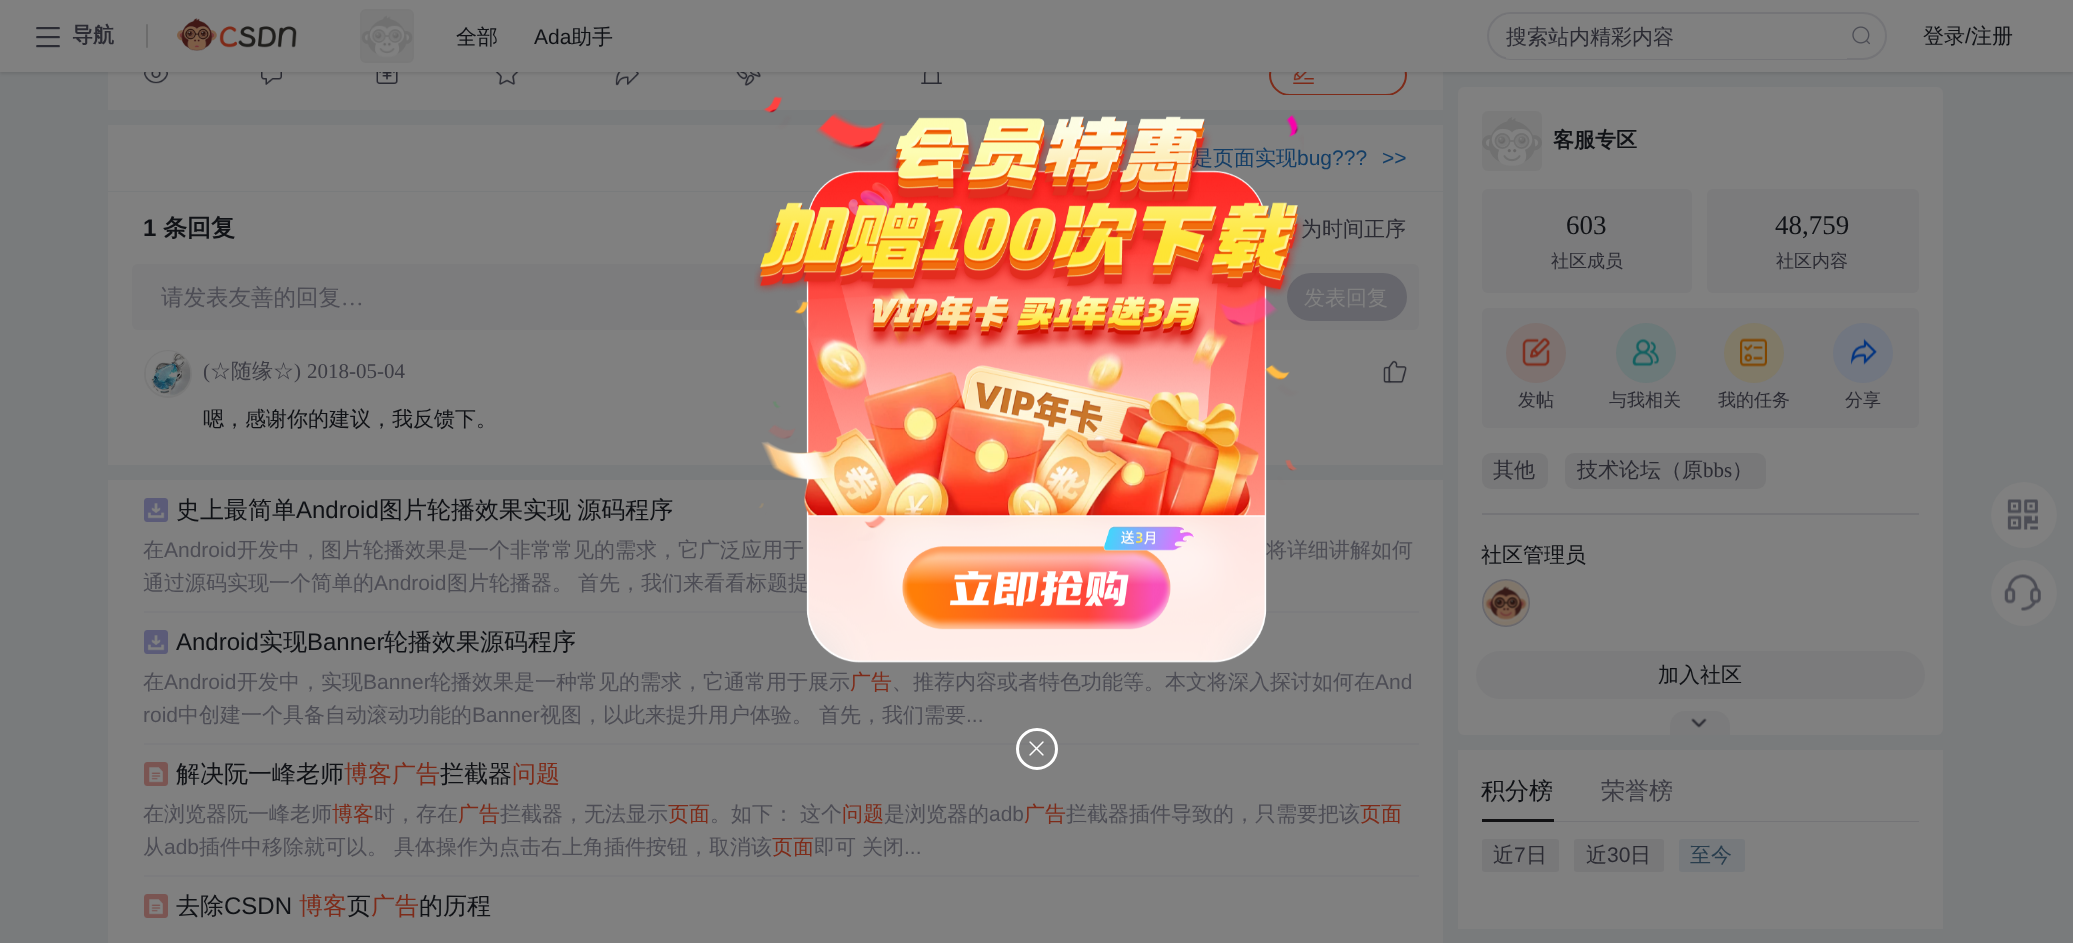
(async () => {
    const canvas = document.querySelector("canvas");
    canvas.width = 2073;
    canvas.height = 943;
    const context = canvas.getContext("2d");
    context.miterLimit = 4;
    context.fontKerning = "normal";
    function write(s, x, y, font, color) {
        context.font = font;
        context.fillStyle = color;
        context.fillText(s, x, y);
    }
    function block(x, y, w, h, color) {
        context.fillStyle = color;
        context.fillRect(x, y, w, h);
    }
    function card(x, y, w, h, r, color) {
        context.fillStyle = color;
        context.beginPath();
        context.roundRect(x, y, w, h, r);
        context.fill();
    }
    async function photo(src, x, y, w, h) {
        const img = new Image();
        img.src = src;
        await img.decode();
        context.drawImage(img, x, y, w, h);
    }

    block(0, 0, 2073, 943, "rgb(121, 123, 124)");
    block(108, 72, 1335, 38, "rgb(128, 128, 128)");
    await photo("media/5.png", 144, 72, 24, 12);
    await photo("media/6.png", 261, 72, 21, 13);
    await photo("media/7.png", 376, 72, 22, 12);
    await photo("media/8.png", 495, 72, 24, 13);
    await photo("media/9.png", 615, 72, 24, 14);
    await photo("media/10.png", 736, 72, 25, 14);
    await photo("media/11.png", 921, 72, 21, 12);
    context.save();
    context.beginPath();
    context.rect(108, 53, 1335, 42);
    context.clip();
    context.beginPath();
    context.roundRect(1270, 55, 136, 40, 20);
    context.strokeStyle = "rgb(126, 43, 25)";
    context.lineWidth = 2;
    context.stroke();
    context.restore();
    await photo("media/12.png", 1293, 72, 21, 12);
    context.fillStyle = "rgba(0, 0, 0, 0.1)";
    context.filter = "blur(1.5px)";
    context.beginPath();
    context.rect(0, 2, 2073, 72);
    context.fill();
    context.filter = "none";
    block(0, 0, 2073, 72, "rgb(128, 128, 128)");
    await photo("media/1.png", 36, 27, 24, 21);
    write("导航", 72, 42, "bold 21px WenQuanYi Zen Hei", "rgb(43, 43, 51)");
    card(146, 24, 2, 24, 1, "rgb(108, 108, 108)");
    await photo("media/2.png", 177, 18, 120, 33);
    context.beginPath();
    context.roundRect(361, 10, 52, 52, 5);
    context.strokeStyle = "rgb(121, 121, 121)";
    context.lineWidth = 2;
    context.stroke();
    await photo("media/3.png", 361, 11, 52, 50);
    write("全部", 456, 44, "500 21px WenQuanYi Zen Hei", "rgb(16, 18, 22)");
    write("Ada", 534, 44, "21px Liberation Sans", "rgb(16, 18, 22)");
    write("助手", 571, 44, "500 21px WenQuanYi Zen Hei", "rgb(16, 18, 22)");
    context.beginPath();
    context.roundRect(1488, 13, 398, 46, 23);
    context.strokeStyle = "rgb(116, 116, 119)";
    context.stroke();
    context.save();
    context.beginPath();
    context.roundRect(1488, 14, 398, 45, 22.5);
    context.clip();
    block(1506, 14, 341, 45, "rgb(128, 128, 128)");
    context.restore();
    write("搜索站内精彩内容", 1506, 44, "500 21px WenQuanYi Zen Hei", "rgb(43, 43, 51)");
    await photo("media/4.png", 1852, 26, 18, 19);
    write("登录", 1923, 43, "500 21px WenQuanYi Zen Hei", "rgb(16, 18, 22)");
    write("/", 1965, 43, "21px Liberation Sans", "rgb(16, 18, 22)");
    write("注册", 1971, 43, "500 21px WenQuanYi Zen Hei", "rgb(16, 18, 22)");
    block(108, 125, 1335, 66, "rgb(128, 128, 128)");
    write("是页面实现", 1192, 165, "500 21px WenQuanYi Zen Hei", "rgb(20, 62, 102)");
    write("bug???", 1297, 165, "21px Liberation Sans", "rgb(20, 62, 102)");
    write(">>", 1382, 165, "21px Liberation Sans", "rgb(20, 62, 102)");
    block(108, 192, 1335, 273, "rgb(128, 128, 128)");
    write("1", 143, 236, "bold 24px Liberation Sans", "rgb(16, 18, 22)");
    write("条回复", 163, 236, "bold 24px WenQuanYi Zen Hei", "rgb(16, 18, 22)");
    write("为时间正序", 1301, 236, "500 21px WenQuanYi Zen Hei", "rgb(43, 43, 51)");
    card(132, 264, 1287, 66, 6, "rgb(124, 124, 125)");
    write("请发表友善的回复", 161, 305, "500 22.5px WenQuanYi Zen Hei", "rgb(77, 77, 85)");
    write("…", 341, 305, "22.5px Liberation Serif", "rgb(77, 77, 85)");
    card(1287, 273, 120, 48, 24, "rgb(102, 102, 108)");
    write("发表回复", 1304, 305, "500 21px WenQuanYi Zen Hei", "rgb(128, 128, 128)");
    context.beginPath();
    context.arc(168, 374, 23, 0, Math.PI * 2);
    context.strokeStyle = "rgb(121, 121, 121)";
    context.stroke();
    await photo("media/13.png", 146, 351, 45, 45);
    write("(", 203, 378, "21px Liberation Serif", "rgb(60, 60, 68)");
    write("☆随缘☆", 210, 378, "500 21px WenQuanYi Zen Hei", "rgb(60, 60, 68)");
    write(")", 294, 378, "21px Liberation Serif", "rgb(60, 60, 68)");
    write("2018-05-04", 307, 378, "21px Liberation Serif", "rgb(60, 60, 68)");
    await photo("media/14.png", 1383, 360, 24, 24);
    write("嗯，感谢你的建议，我反馈下。", 203, 426, "500 21px WenQuanYi Zen Hei", "rgb(16, 18, 22)");
    block(108, 480, 1335, 463, "rgb(128, 128, 128)");
    block(144, 611, 1275, 2, "rgb(124, 124, 126)");
    await photo("media/15.png", 144, 498, 24, 24);
    write("史上最简单", 176, 518, "500 24px WenQuanYi Zen Hei", "rgb(16, 18, 22)");
    write("Android", 296, 518, "24px Liberation Sans", "rgb(16, 18, 22)");
    context.wordSpacing = "-1px";
    write("图片轮播效果实现 源码程序", 379, 518, "500 24px WenQuanYi Zen Hei", "rgb(16, 18, 22)");
    context.wordSpacing = "0px";
    write("在", 143, 557, "500 21px WenQuanYi Zen Hei", "rgb(77, 77, 85)");
    write("Android", 164, 557, "21px Liberation Sans", "rgb(77, 77, 85)");
    write("开发中，图片轮播效果是一个非常常见的需求，它广泛应用于", 237, 557, "500 21px WenQuanYi Zen Hei", "rgb(77, 77, 85)");
    write("将详细讲解如何", 1266, 557, "500 21px WenQuanYi Zen Hei", "rgb(77, 77, 85)");
    write("通过源码实现一个简单的", 143, 590, "500 21px WenQuanYi Zen Hei", "rgb(77, 77, 85)");
    write("Android", 374, 590, "21px Liberation Sans", "rgb(77, 77, 85)");
    write("图片轮播器。", 447, 590, "500 21px WenQuanYi Zen Hei", "rgb(77, 77, 85)");
    write("首先，我们来看看标题提", 578, 590, "500 21px WenQuanYi Zen Hei", "rgb(77, 77, 85)");
    block(144, 743, 1275, 2, "rgb(124, 124, 126)");
    await photo("media/15.png", 144, 630, 24, 24);
    write("Android", 176, 650, "24px Liberation Sans", "rgb(16, 18, 22)");
    write("实现", 259, 650, "500 24px WenQuanYi Zen Hei", "rgb(16, 18, 22)");
    write("Banner", 307, 650, "24px Liberation Sans", "rgb(16, 18, 22)");
    write("轮播效果源码程序", 384, 650, "500 24px WenQuanYi Zen Hei", "rgb(16, 18, 22)");
    write("在", 143, 689, "500 21px WenQuanYi Zen Hei", "rgb(77, 77, 85)");
    write("Android", 164, 689, "21px Liberation Sans", "rgb(77, 77, 85)");
    write("开发中，实现", 237, 689, "500 21px WenQuanYi Zen Hei", "rgb(77, 77, 85)");
    write("Banner", 363, 689, "21px Liberation Sans", "rgb(77, 77, 85)");
    write("轮播效果是一种常见的需求，它通常用于展示", 430, 689, "500 21px WenQuanYi Zen Hei", "rgb(77, 77, 85)");
    write("广告", 850, 689, "500 21px WenQuanYi Zen Hei", "rgb(126, 43, 25)");
    write("、推荐内容或者特色功能等。本文将深入探讨如何在", 892, 689, "500 21px WenQuanYi Zen Hei", "rgb(77, 77, 85)");
    write("And", 1375, 689, "21px Liberation Sans", "rgb(77, 77, 85)");
    write("roid", 143, 722, "21px Liberation Sans", "rgb(77, 77, 85)");
    write("中创建一个具备自动滚动功能的", 178, 722, "500 21px WenQuanYi Zen Hei", "rgb(77, 77, 85)");
    write("Banner", 472, 722, "21px Liberation Sans", "rgb(77, 77, 85)");
    write("视图，以此来提升用户体验。", 540, 722, "500 21px WenQuanYi Zen Hei", "rgb(77, 77, 85)");
    write("首先，我们需要", 819, 722, "500 21px WenQuanYi Zen Hei", "rgb(77, 77, 85)");
    write("...", 966, 722, "21px Liberation Sans", "rgb(77, 77, 85)");
    block(144, 875, 1275, 2, "rgb(124, 124, 126)");
    await photo("media/16.png", 144, 762, 24, 24);
    write("解决阮一峰老师", 176, 782, "500 24px WenQuanYi Zen Hei", "rgb(16, 18, 22)");
    write("博客广告", 344, 782, "500 24px WenQuanYi Zen Hei", "rgb(126, 43, 25)");
    write("拦截器", 440, 782, "500 24px WenQuanYi Zen Hei", "rgb(16, 18, 22)");
    write("问题", 512, 782, "500 24px WenQuanYi Zen Hei", "rgb(126, 43, 25)");
    write("在浏览器阮一峰老师", 143, 821, "500 21px WenQuanYi Zen Hei", "rgb(77, 77, 85)");
    write("博客", 332, 821, "500 21px WenQuanYi Zen Hei", "rgb(126, 43, 25)");
    write("时，存在", 374, 821, "500 21px WenQuanYi Zen Hei", "rgb(77, 77, 85)");
    write("广告", 458, 821, "500 21px WenQuanYi Zen Hei", "rgb(126, 43, 25)");
    write("拦截器，无法显示", 500, 821, "500 21px WenQuanYi Zen Hei", "rgb(77, 77, 85)");
    write("页面", 668, 821, "500 21px WenQuanYi Zen Hei", "rgb(126, 43, 25)");
    write("。如下：", 710, 821, "500 21px WenQuanYi Zen Hei", "rgb(77, 77, 85)");
    write("这个", 800, 821, "500 21px WenQuanYi Zen Hei", "rgb(77, 77, 85)");
    write("问题", 842, 821, "500 21px WenQuanYi Zen Hei", "rgb(126, 43, 25)");
    write("是浏览器的", 884, 821, "500 21px WenQuanYi Zen Hei", "rgb(77, 77, 85)");
    write("adb", 989, 821, "21px Liberation Sans", "rgb(77, 77, 85)");
    write("广告", 1024, 821, "500 21px WenQuanYi Zen Hei", "rgb(126, 43, 25)");
    write("拦截器插件导致的，只需要把该", 1066, 821, "500 21px WenQuanYi Zen Hei", "rgb(77, 77, 85)");
    write("页面", 1360, 821, "500 21px WenQuanYi Zen Hei", "rgb(126, 43, 25)");
    write("从", 143, 854, "500 21px WenQuanYi Zen Hei", "rgb(77, 77, 85)");
    write("adb", 164, 854, "21px Liberation Sans", "rgb(77, 77, 85)");
    write("插件中移除就可以。", 199, 854, "500 21px WenQuanYi Zen Hei", "rgb(77, 77, 85)");
    write("具体操作为点击右上角插件按钮，取消该", 394, 854, "500 21px WenQuanYi Zen Hei", "rgb(77, 77, 85)");
    write("页面", 772, 854, "500 21px WenQuanYi Zen Hei", "rgb(126, 43, 25)");
    write("即可", 814, 854, "500 21px WenQuanYi Zen Hei", "rgb(77, 77, 85)");
    write("关闭", 862, 854, "500 21px WenQuanYi Zen Hei", "rgb(77, 77, 85)");
    write("...", 904, 854, "21px Liberation Sans", "rgb(77, 77, 85)");
    await photo("media/16.png", 144, 894, 24, 24);
    write("去除", 176, 914, "500 24px WenQuanYi Zen Hei", "rgb(16, 18, 22)");
    write("CSDN", 224, 914, "24px Liberation Sans", "rgb(16, 18, 22)");
    write("博客", 299, 914, "500 24px WenQuanYi Zen Hei", "rgb(126, 43, 25)");
    write("页", 347, 914, "500 24px WenQuanYi Zen Hei", "rgb(16, 18, 22)");
    write("广告", 371, 914, "500 24px WenQuanYi Zen Hei", "rgb(126, 43, 25)");
    write("的历程", 419, 914, "500 24px WenQuanYi Zen Hei", "rgb(16, 18, 22)");
    card(1458, 87, 485, 648, 6, "rgb(128, 128, 128)");
    await photo("media/17.png", 1482, 111, 60, 60);
    write("客服专区", 1553, 147, "bold 21px WenQuanYi Zen Hei", "rgb(16, 18, 22)");
    card(1482, 189, 210, 104, 6, "rgb(123, 123, 124)");
    write("603", 1566, 234, "27px Liberation Serif", "rgb(16, 18, 22)");
    write("社区成员", 1551, 267, "500 18px WenQuanYi Zen Hei", "rgb(43, 43, 51)");
    card(1707, 189, 212, 104, 6, "rgb(123, 123, 124)");
    write("48,759", 1775, 234, "27px Liberation Serif", "rgb(16, 18, 22)");
    write("社区内容", 1776, 267, "500 18px WenQuanYi Zen Hei", "rgb(43, 43, 51)");
    card(1482, 308, 437, 120, 6, "rgb(123, 123, 124)");
    context.fillStyle = "rgb(124, 113, 111)";
    context.beginPath();
    context.arc(1536, 353, 30, 0, Math.PI * 2);
    context.fill();
    await photo("media/18.png", 1522, 337, 28, 30);
    write("发帖", 1518, 406, "500 18px WenQuanYi Zen Hei", "rgb(43, 43, 51)");
    context.fillStyle = "rgb(108, 121, 121)";
    context.beginPath();
    context.arc(1646, 353, 30, 0, Math.PI * 2);
    context.fill();
    await photo("media/19.png", 1632, 338, 27, 29);
    write("与我相关", 1609, 406, "500 18px WenQuanYi Zen Hei", "rgb(43, 43, 51)");
    context.fillStyle = "rgb(127, 121, 103)";
    context.beginPath();
    context.arc(1754, 353, 30, 0, Math.PI * 2);
    context.fill();
    await photo("media/20.png", 1740, 338, 27, 29);
    write("我的任务", 1718, 406, "500 18px WenQuanYi Zen Hei", "rgb(43, 43, 51)");
    context.fillStyle = "rgb(113, 118, 128)";
    context.beginPath();
    context.arc(1863, 353, 30, 0, Math.PI * 2);
    context.fill();
    await photo("media/21.png", 1851, 338, 26, 27);
    write("分享", 1845, 406, "500 18px WenQuanYi Zen Hei", "rgb(43, 43, 51)");
    card(1482, 453, 66, 36, 9, "rgb(120, 120, 121)");
    write("其他", 1493, 477, "500 21px WenQuanYi Zen Hei", "rgb(43, 43, 51)");
    card(1565, 453, 201, 36, 9, "rgb(120, 120, 121)");
    write("技术论坛（原", 1577, 477, "500 21px WenQuanYi Zen Hei", "rgb(43, 43, 51)");
    write("bbs", 1703, 477, "21px Liberation Serif", "rgb(43, 43, 51)");
    write("）", 1732, 477, "500 21px WenQuanYi Zen Hei", "rgb(43, 43, 51)");
    block(1482, 513, 437, 2, "rgb(116, 116, 119)");
    write("社区管理员", 1481, 562, "500 21px WenQuanYi Zen Hei", "rgb(16, 18, 22)");
    context.beginPath();
    context.arc(1506, 603, 23, 0, Math.PI * 2);
    context.strokeStyle = "rgb(102, 102, 108)";
    context.stroke();
    await photo("media/22.png", 1483, 580, 46, 46);
    card(1476, 651, 449, 48, 24, "rgb(123, 123, 124)");
    write("加入社区", 1658, 682, "500 21px WenQuanYi Zen Hei", "rgb(16, 18, 22)");
    context.fillStyle = "rgb(123, 123, 124)";
    context.beginPath();
    context.roundRect(1670, 711, 60, 24, [15, 15, 0, 0]);
    context.fill();
    await photo("media/23.png", 1691, 718, 16, 10);
    block(1458, 750, 485, 179, "rgb(128, 128, 128)");
    write("积分榜", 1481, 799, "500 24px WenQuanYi Zen Hei", "rgb(16, 18, 22)");
    write("荣誉榜", 1601, 799, "500 24px WenQuanYi Zen Hei", "rgb(60, 60, 68)");
    block(1482, 819, 72, 3, "rgb(17, 17, 19)");
    block(1554, 821, 365, 1, "rgb(116, 116, 119)");
    card(1482, 839, 77, 33, 3, "rgb(120, 120, 121)");
    write("近", 1493, 862, "500 21px WenQuanYi Zen Hei", "rgb(43, 43, 51)");
    write("7", 1514, 862, "21px Liberation Sans", "rgb(43, 43, 51)");
    write("日", 1526, 862, "500 21px WenQuanYi Zen Hei", "rgb(43, 43, 51)");
    card(1574, 839, 90, 33, 3, "rgb(120, 120, 121)");
    write("近", 1586, 862, "500 21px WenQuanYi Zen Hei", "rgb(43, 43, 51)");
    write("30", 1607, 862, "21px Liberation Sans", "rgb(43, 43, 51)");
    write("日", 1630, 862, "500 21px WenQuanYi Zen Hei", "rgb(43, 43, 51)");
    card(1679, 839, 66, 33, 3, "rgb(118, 121, 124)");
    write("至今", 1690, 862, "500 21px WenQuanYi Zen Hei", "rgb(40, 61, 77)");
    await photo("media/24.png", 754, 96, 550, 567);
    context.beginPath();
    context.arc(1037, 749, 19.5, 0, Math.PI * 2);
    context.strokeStyle = "rgb(255, 255, 255)";
    context.lineWidth = 3;
    context.stroke();
    await photo("media/25.png", 1029, 741, 15, 15);
    context.fillStyle = "rgb(128, 128, 128)";
    context.beginPath();
    context.arc(2024, 515, 33, 0, Math.PI * 2);
    context.fill();
    await photo("media/26.png", 2007, 499, 31, 31);
    context.beginPath();
    context.arc(2024, 593, 33, 0, Math.PI * 2);
    context.fill();
    await photo("media/27.png", 2004, 574, 37, 37);
})();
